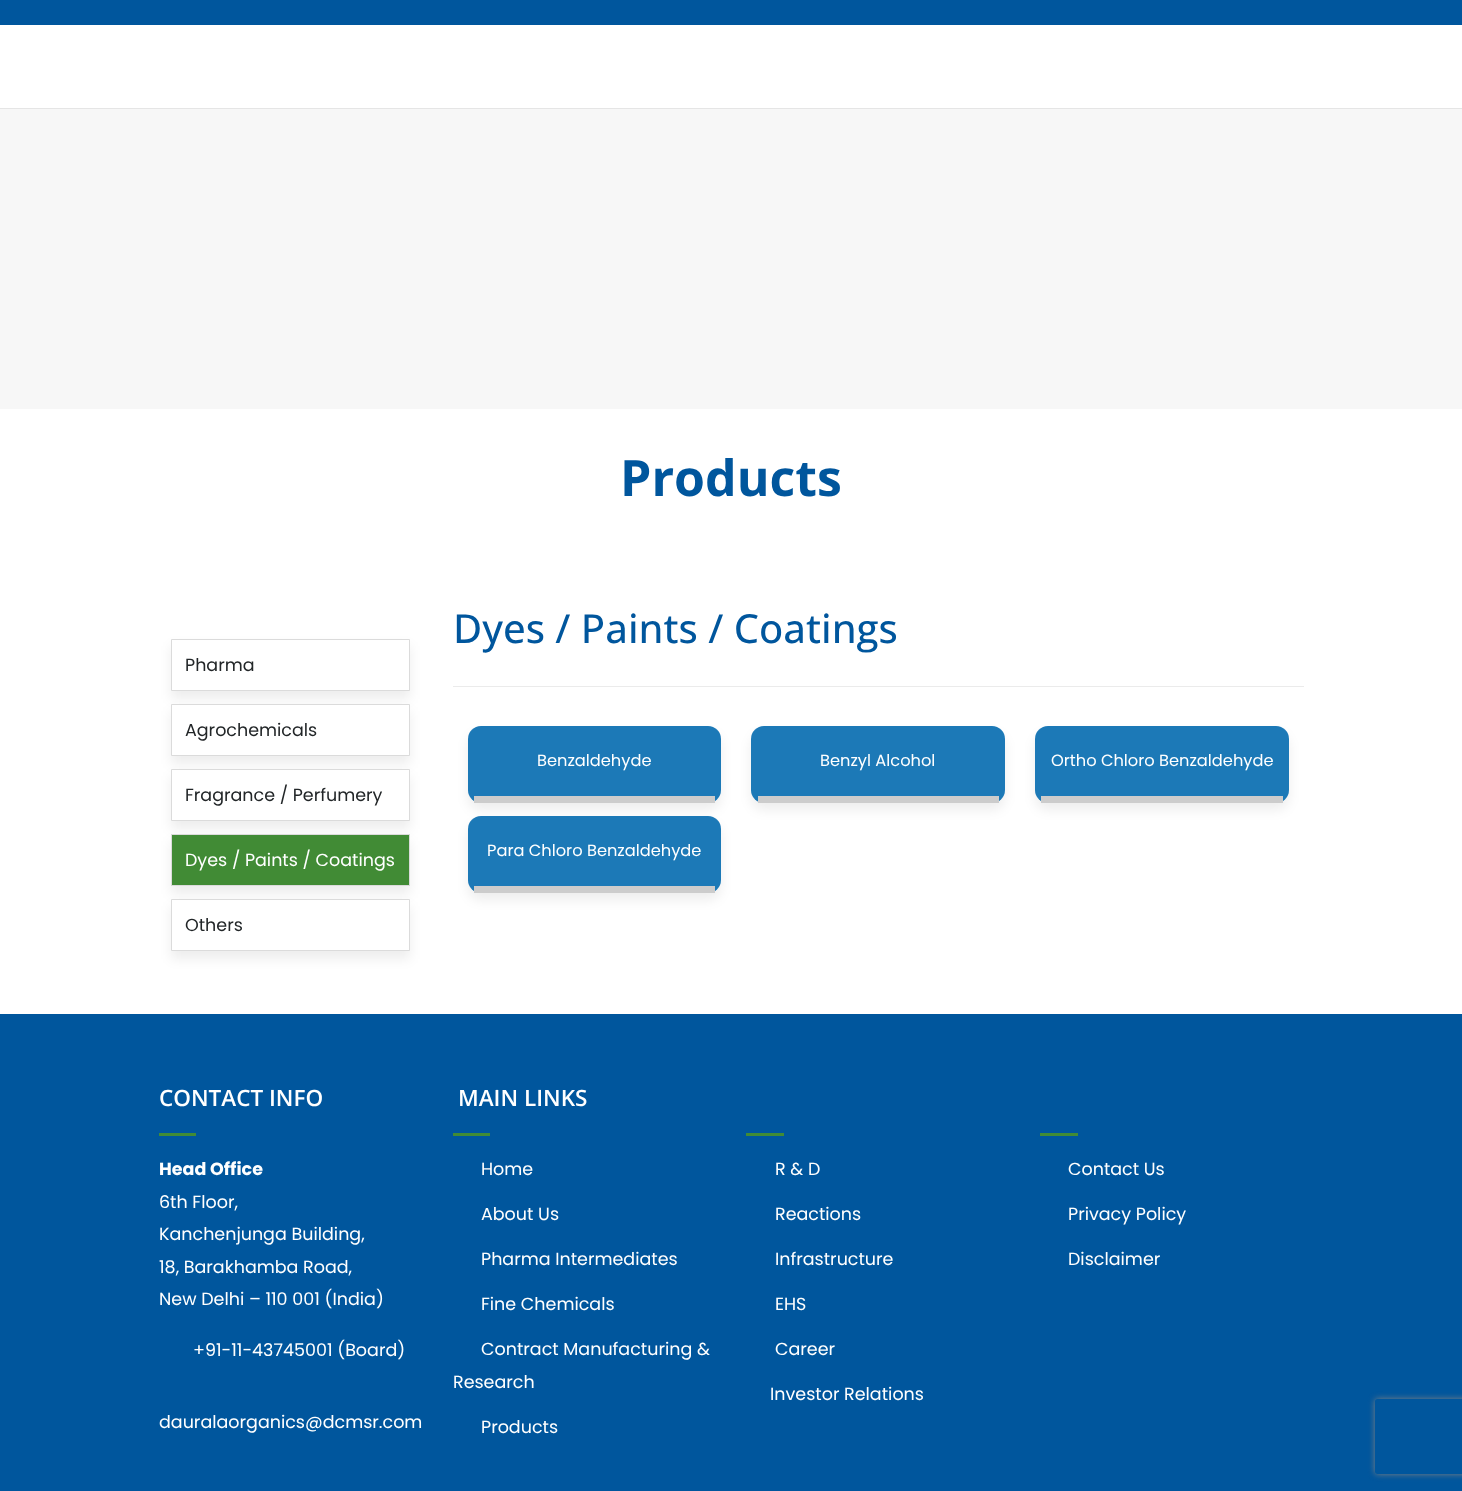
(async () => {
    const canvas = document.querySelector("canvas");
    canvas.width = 1462;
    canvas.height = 1491;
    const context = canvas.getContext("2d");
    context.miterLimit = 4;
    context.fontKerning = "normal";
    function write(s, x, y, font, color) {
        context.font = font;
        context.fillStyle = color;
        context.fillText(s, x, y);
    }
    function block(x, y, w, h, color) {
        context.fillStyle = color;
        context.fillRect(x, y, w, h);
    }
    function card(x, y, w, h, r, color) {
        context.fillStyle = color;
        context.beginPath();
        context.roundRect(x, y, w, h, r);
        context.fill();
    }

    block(0, 0, 1462, 1491, "rgb(247, 247, 247)");
    block(0, 25, 1462, 83, "rgb(255, 255, 255)");
    block(0, 0, 1462, 25, "rgb(0, 86, 157)");
    block(0, 108, 1462, 1, "rgb(229, 229, 229)");
    block(0, 409, 1462, 605, "rgb(255, 255, 255)");
    write("Products", 620, 496, "bold 50px Open Sans", "rgb(0, 86, 157)");
    context.fillStyle = "rgba(0, 0, 0, 0.07)";
    context.filter = "blur(6px)";
    context.beginPath();
    context.rect(171, 646, 239, 53);
    context.fill();
    context.filter = "none";
    context.fillStyle = "rgb(255, 255, 255)";
    context.beginPath();
    context.rect(171.5, 639.5, 238, 51);
    context.fill();
    context.strokeStyle = "rgb(219, 219, 219)";
    context.stroke();
    write("Pharma", 185, 671, "17.5px Poppins", "rgb(34, 38, 40)");
    context.fillStyle = "rgba(0, 0, 0, 0.07)";
    context.filter = "blur(6px)";
    context.beginPath();
    context.rect(171, 711, 239, 53);
    context.fill();
    context.filter = "none";
    context.fillStyle = "rgb(255, 255, 255)";
    context.beginPath();
    context.rect(171.5, 704.5, 238, 51);
    context.fill();
    context.stroke();
    write("Agrochemicals", 185, 736, "17.5px Poppins", "rgb(34, 38, 40)");
    context.fillStyle = "rgba(0, 0, 0, 0.07)";
    context.filter = "blur(6px)";
    context.beginPath();
    context.rect(171, 776, 239, 53);
    context.fill();
    context.filter = "none";
    context.fillStyle = "rgb(255, 255, 255)";
    context.beginPath();
    context.rect(171.5, 769.5, 238, 51);
    context.fill();
    context.stroke();
    write("Fragrance / Perfumery", 185, 801, "17.5px Poppins", "rgb(34, 38, 40)");
    context.fillStyle = "rgba(0, 0, 0, 0.07)";
    context.filter = "blur(6px)";
    context.beginPath();
    context.rect(171, 841, 239, 53);
    context.fill();
    context.filter = "none";
    context.fillStyle = "rgb(65, 139, 53)";
    context.beginPath();
    context.rect(171.5, 834.5, 238, 51);
    context.fill();
    context.stroke();
    write("Dyes / Paints / Coatings", 185, 866, "17.5px Poppins", "rgb(255, 255, 255)");
    context.fillStyle = "rgba(0, 0, 0, 0.07)";
    context.filter = "blur(6px)";
    context.beginPath();
    context.rect(171, 906, 239, 53);
    context.fill();
    context.filter = "none";
    context.fillStyle = "rgb(255, 255, 255)";
    context.beginPath();
    context.rect(171.5, 899.5, 238, 51);
    context.fill();
    context.stroke();
    write("Others", 185, 931, "17.5px Poppins", "rgb(34, 38, 40)");
    write("Dyes / Paints / Coatings", 453, 643, "500 40px Open Sans", "rgb(0, 86, 157)");
    block(453, 686, 851, 1, "rgb(235, 235, 235)");
    context.fillStyle = "rgba(0, 0, 0, 0.07)";
    context.filter = "blur(6px)";
    context.beginPath();
    context.roundRect(468, 734, 253, 76, 13);
    context.fill();
    context.filter = "none";
    card(468, 726, 253, 77, 13, "rgb(28, 121, 183)");
    block(474, 796, 241, 7, "rgb(204, 204, 204)");
    write("Benzaldehyde", 537, 766, "16.25px Poppins", "rgb(255, 255, 255)");
    context.fillStyle = "rgba(0, 0, 0, 0.07)";
    context.filter = "blur(6px)";
    context.beginPath();
    context.roundRect(751, 734, 254, 76, 13);
    context.fill();
    context.filter = "none";
    card(751, 726, 254, 77, 13, "rgb(28, 121, 183)");
    block(758, 796, 241, 7, "rgb(204, 204, 204)");
    write("Benzyl Alcohol", 820, 766, "16.25px Poppins", "rgb(255, 255, 255)");
    context.fillStyle = "rgba(0, 0, 0, 0.07)";
    context.filter = "blur(6px)";
    context.beginPath();
    context.roundRect(1035, 734, 254, 76, 13);
    context.fill();
    context.filter = "none";
    card(1035, 726, 254, 77, 13, "rgb(28, 121, 183)");
    block(1041, 796, 242, 7, "rgb(204, 204, 204)");
    write("Ortho Chloro Benzaldehyde", 1051, 766, "16.25px Poppins", "rgb(255, 255, 255)");
    context.fillStyle = "rgba(0, 0, 0, 0.07)";
    context.filter = "blur(6px)";
    context.beginPath();
    context.roundRect(468, 824, 253, 76, 13);
    context.fill();
    context.filter = "none";
    card(468, 816, 253, 77, 13, "rgb(28, 121, 183)");
    block(474, 886, 241, 7, "rgb(204, 204, 204)");
    write("Para Chloro Benzaldehyde", 487, 856, "16.25px Poppins", "rgb(255, 255, 255)");
    block(0, 1014, 1462, 477, "rgb(0, 86, 157)");
    write("CONTACT INFO", 159, 1106, "600 22.5px Open Sans", "rgb(255, 255, 255)");
    block(159, 1133, 37, 3, "rgb(65, 139, 53)");
    write("Head Office", 159, 1175, "bold 17.5px Poppins", "rgb(255, 255, 255)");
    write("6th Floor,", 159, 1208, "17.5px Poppins", "rgb(255, 255, 255)");
    write("Kanchenjunga Building,", 159, 1240, "17.5px Poppins", "rgb(255, 255, 255)");
    write("18, Barakhamba Road,", 159, 1273, "17.5px Poppins", "rgb(255, 255, 255)");
    write("New Delhi – 110 001 (India)", 159, 1305, "17.5px Poppins", "rgb(255, 255, 255)");
    write("+91-11-43745001 (Board)", 193, 1356, "17.5px Poppins", "rgb(255, 255, 255)");
    write("dauralaorganics@dcmsr.com", 159, 1428, "17.5px Poppins", "rgb(255, 255, 255)");
    write("MAIN LINKS", 458, 1106, "600 22.5px Open Sans", "rgb(255, 255, 255)");
    block(453, 1133, 37, 3, "rgb(65, 139, 53)");
    write("Home", 481, 1175, "17.5px Poppins", "rgb(255, 255, 255)");
    write("About Us", 481, 1220, "17.5px Poppins", "rgb(255, 255, 255)");
    write("Pharma Intermediates", 481, 1265, "17.5px Poppins", "rgb(255, 255, 255)");
    write("Fine Chemicals", 481, 1310, "17.5px Poppins", "rgb(255, 255, 255)");
    write("Contract Manufacturing &", 481, 1355, "17.5px Poppins", "rgb(255, 255, 255)");
    write("Research", 453, 1388, "17.5px Poppins", "rgb(255, 255, 255)");
    write("Products", 481, 1433, "17.5px Poppins", "rgb(255, 255, 255)");
    block(746, 1133, 38, 3, "rgb(65, 139, 53)");
    write("R & D", 775, 1175, "17.5px Poppins", "rgb(255, 255, 255)");
    write("Reactions", 775, 1220, "17.5px Poppins", "rgb(255, 255, 255)");
    write("Infrastructure", 775, 1265, "17.5px Poppins", "rgb(255, 255, 255)");
    write("EHS", 775, 1310, "17.5px Poppins", "rgb(255, 255, 255)");
    write("Career", 775, 1355, "17.5px Poppins", "rgb(255, 255, 255)");
    write("Investor Relations", 770, 1400, "17.5px Poppins", "rgb(255, 255, 255)");
    block(1040, 1133, 38, 3, "rgb(65, 139, 53)");
    write("Contact Us", 1068, 1175, "17.5px Poppins", "rgb(255, 255, 255)");
    write("Privacy Policy", 1068, 1220, "17.5px Poppins", "rgb(255, 255, 255)");
    write("Disclaimer", 1068, 1265, "17.5px Poppins", "rgb(255, 255, 255)");
    context.save();
    context.beginPath();
    context.moveTo(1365, 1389);
    context.lineTo(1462, 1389);
    context.lineTo(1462, 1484);
    context.lineTo(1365, 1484);
    context.closePath();
    context.moveTo(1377.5, 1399);
    context.lineTo(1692.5, 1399);
    context.bezierCurveTo(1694, 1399, 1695, 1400, 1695, 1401.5);
    context.lineTo(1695, 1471.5);
    context.bezierCurveTo(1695, 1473, 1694, 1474, 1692.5, 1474);
    context.lineTo(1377.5, 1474);
    context.bezierCurveTo(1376, 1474, 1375, 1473, 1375, 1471.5);
    context.lineTo(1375, 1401.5);
    context.bezierCurveTo(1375, 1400, 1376, 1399, 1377.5, 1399);
    context.closePath();
    context.clip("evenodd");
    context.fillStyle = "rgb(128, 128, 128)";
    context.filter = "blur(3px)";
    context.beginPath();
    context.roundRect(1375, 1399, 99, 75, 2.5);
    context.fill();
    context.filter = "none";
    context.restore();
})();
